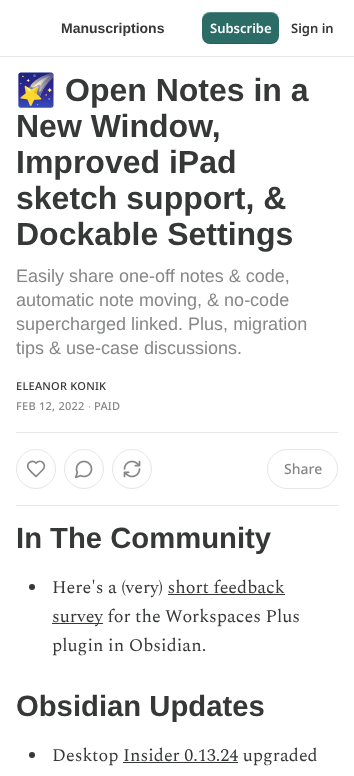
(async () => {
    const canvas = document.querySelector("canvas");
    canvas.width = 354;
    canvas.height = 776;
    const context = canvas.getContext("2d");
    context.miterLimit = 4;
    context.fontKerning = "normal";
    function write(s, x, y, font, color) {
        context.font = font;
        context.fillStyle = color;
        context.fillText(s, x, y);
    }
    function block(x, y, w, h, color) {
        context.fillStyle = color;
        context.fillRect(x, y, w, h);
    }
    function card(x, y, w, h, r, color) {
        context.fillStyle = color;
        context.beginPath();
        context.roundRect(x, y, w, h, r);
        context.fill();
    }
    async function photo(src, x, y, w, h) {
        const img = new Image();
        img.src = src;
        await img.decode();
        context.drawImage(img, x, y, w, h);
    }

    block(0, 0, 354, 776, "rgb(255, 255, 255)");
    block(0, 56, 354, 1, "rgb(230, 230, 230)");
    write("Manuscriptions", 61, 33, "bold 14px Liberation Sans", "rgb(54, 55, 55)");
    card(202, 12, 77, 32, 8, "rgb(44, 108, 103)");
    context.fillStyle = "rgba(0, 0, 0, 0.1)";
    context.beginPath();
    context.moveTo(202, 35);
    context.bezierCurveTo(202, 46, 212, 44, 220, 44);
    context.lineTo(261, 44);
    context.bezierCurveTo(269, 44, 279, 46, 279, 35);
    context.bezierCurveTo(279, 39, 275, 43, 271, 43);
    context.lineTo(210, 43);
    context.bezierCurveTo(206, 43, 202, 39, 202, 35);
    context.closePath();
    context.fill();
    context.fillStyle = "rgba(255, 255, 255, 0.2)";
    context.beginPath();
    context.moveTo(210, 13);
    context.lineTo(271, 13);
    context.bezierCurveTo(275, 13, 279, 17, 279, 21);
    context.bezierCurveTo(279, 10, 269, 12, 261, 12);
    context.lineTo(220, 12);
    context.bezierCurveTo(212, 12, 202, 10, 202, 21);
    context.bezierCurveTo(202, 17, 206, 13, 210, 13);
    context.closePath();
    context.fill();
    write("Subscribe", 210, 33, "600 13px Noto Sans", "rgb(255, 255, 255)");
    write("Sign in", 291, 33, "600 13px Noto Sans", "rgb(54, 55, 55)");
    write("🌠", 16, 101, "bold 32px Noto Color Emoji", "rgb(54, 55, 55)");
    write("Open Notes in a", 65, 101, "bold 32px Liberation Sans", "rgb(54, 55, 55)");
    write("New Window,", 16, 137, "bold 32px Liberation Sans", "rgb(54, 55, 55)");
    write("Improved iPad", 16, 173, "bold 32px Liberation Sans", "rgb(54, 55, 55)");
    write("sketch support, &", 16, 209, "bold 32px Liberation Sans", "rgb(54, 55, 55)");
    write("Dockable Settings", 16, 245, "bold 32px Liberation Sans", "rgb(54, 55, 55)");
    write("Easily share one-off notes & code,", 16, 282, "18px Liberation Sans", "rgb(134, 135, 135)");
    write("automatic note moving, & no-code", 16, 306, "18px Liberation Sans", "rgb(134, 135, 135)");
    write("supercharged linked. Plus, migration", 16, 330, "18px Liberation Sans", "rgb(134, 135, 135)");
    write("tips & use-case discussions.", 16, 354, "18px Liberation Sans", "rgb(134, 135, 135)");
    context.letterSpacing = "0.25px";
    write("ELEANOR KONIK", 16, 390, "500 11px Noto Sans", "rgb(54, 55, 55)");
    write("FEB 12, 2022", 16, 410, "500 11px Noto Sans", "rgb(134, 135, 135)");
    write("∙", 88, 410, "11px Liberation Sans", "rgb(134, 135, 135)");
    write("PAID", 94, 410, "500 11px Noto Sans", "rgb(134, 135, 135)");
    block(16, 432, 322, 1, "rgb(230, 230, 230)");
    block(16, 505, 322, 1, "rgb(230, 230, 230)");
    context.beginPath();
    context.arc(36, 469, 19.5, 0, Math.PI * 2);
    context.strokeStyle = "rgb(230, 230, 230)";
    context.stroke();
    context.beginPath();
    context.moveTo(42, 470.5);
    context.bezierCurveTo(48, 464.5, 41, 458.5, 36, 463);
    context.bezierCurveTo(32.5, 459.5, 26.5, 462.5, 28, 467.5);
    context.bezierCurveTo(29, 470.5, 34, 474.5, 36, 476.5);
    context.closePath();
    context.strokeStyle = "rgb(134, 135, 135)";
    context.lineWidth = 1.7;
    context.lineCap = "round";
    context.lineJoin = "round";
    context.stroke();
    context.beginPath();
    context.arc(84, 469, 19.5, 0, Math.PI * 2);
    context.strokeStyle = "rgb(230, 230, 230)";
    context.lineWidth = 1;
    context.stroke();
    await photo("media/1.png", 74, 460, 19, 19);
    context.beginPath();
    context.arc(132, 469, 19.5, 0, Math.PI * 2);
    context.stroke();
    await photo("media/2.png", 123, 460, 18, 18);
    context.beginPath();
    context.roundRect(267.5, 449.5, 70, 39, 19.5);
    context.lineJoin = "miter";
    context.stroke();
    context.letterSpacing = "0px";
    write("Share", 284, 474, "500 14px Noto Sans", "rgb(134, 135, 135)");
    write("In The Community", 16, 548, "bold 29.25px Liberation Sans", "rgb(54, 55, 55)");
    context.beginPath();
    context.arc(32, 587, 3, 0, Math.PI * 2);
    context.fill();
    write("Here's a (very) short feedback", 52, 593, "18px Spectral", "rgb(54, 55, 55)");
    block(52, 623, 51, 1, "rgb(54, 55, 55)");
    write("survey for the Workspaces Plus", 52, 622, "18px Spectral", "rgb(54, 55, 55)");
    block(168, 594, 117, 1, "rgb(54, 55, 55)");
    write("plugin in Obsidian.", 52, 651, "18px Spectral", "rgb(54, 55, 55)");
    write("Obsidian Updates", 16, 716, "bold 29.25px Liberation Sans", "rgb(54, 55, 55)");
    context.beginPath();
    context.arc(32, 755, 3, 0, Math.PI * 2);
    context.fill();
    write("Desktop Insider 0.13.24 upgraded", 52, 761, "18px Spectral", "rgb(54, 55, 55)");
    block(123, 762, 115, 1, "rgb(54, 55, 55)");
})();
